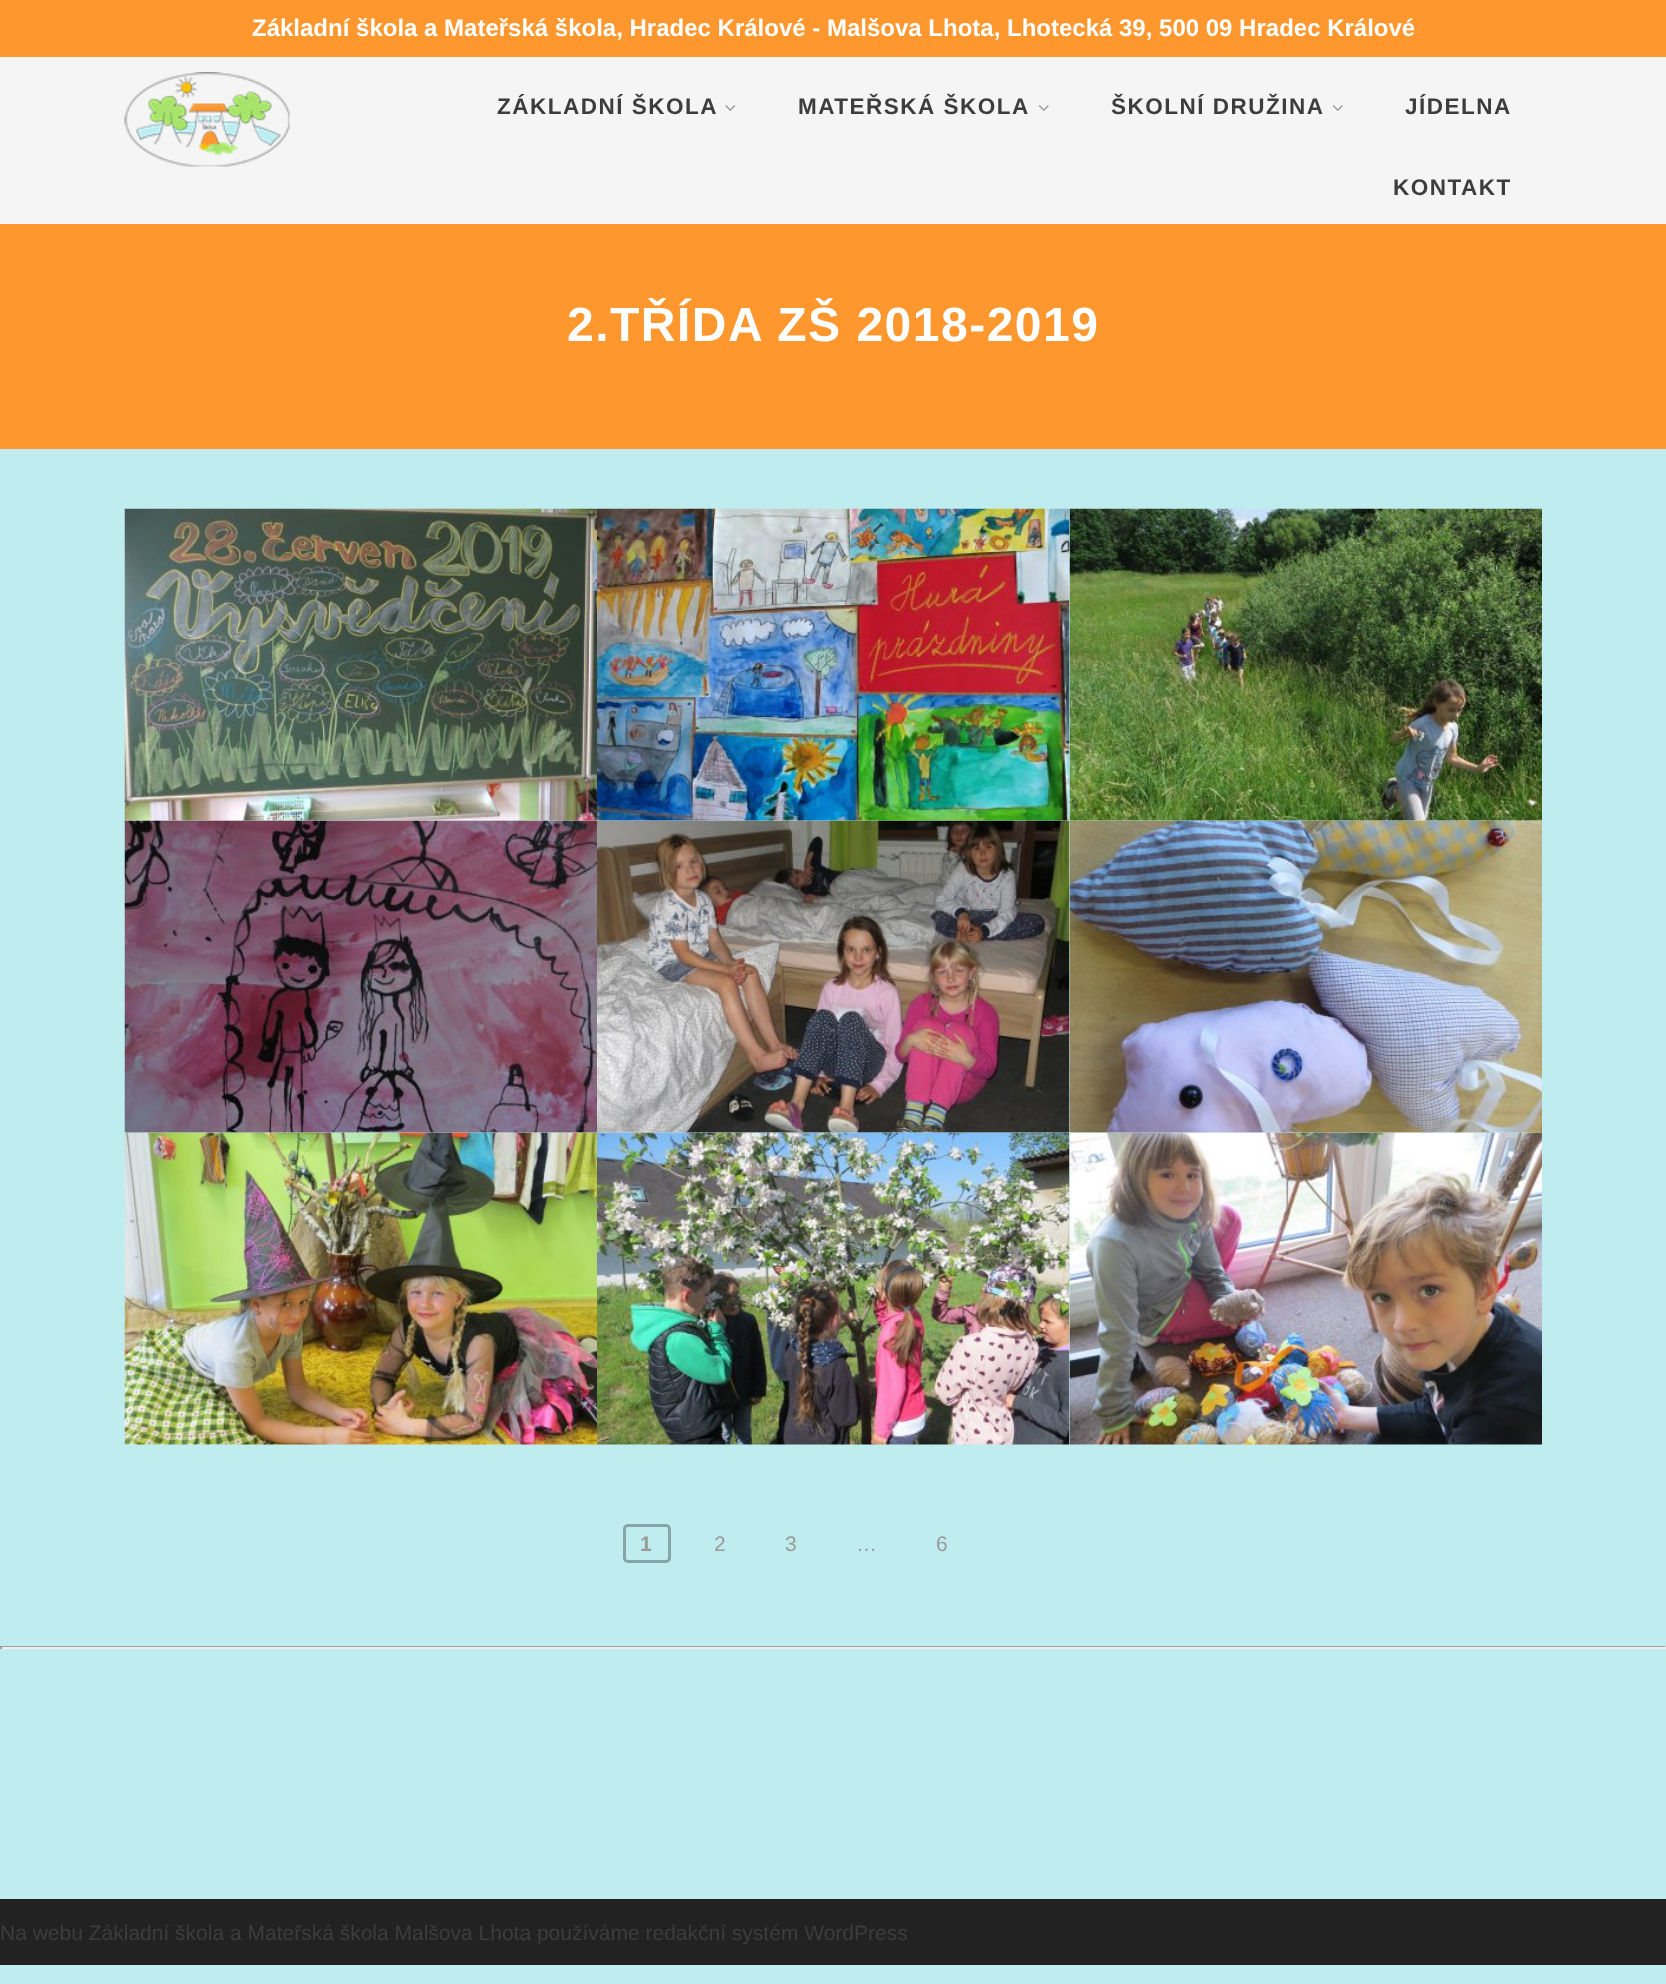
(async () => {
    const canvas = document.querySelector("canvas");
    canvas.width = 1666;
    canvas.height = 1984;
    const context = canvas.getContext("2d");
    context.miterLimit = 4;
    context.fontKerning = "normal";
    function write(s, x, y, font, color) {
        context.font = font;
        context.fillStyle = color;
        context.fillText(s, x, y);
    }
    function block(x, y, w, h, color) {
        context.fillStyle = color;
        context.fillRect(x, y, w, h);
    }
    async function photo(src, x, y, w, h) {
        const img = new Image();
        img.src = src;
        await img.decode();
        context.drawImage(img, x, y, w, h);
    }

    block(0, 0, 1666, 1984, "rgb(191, 236, 238)");
    block(0, 0, 1666, 57, "rgb(255, 151, 47)");
    write("Základní škola a Mateřská škola, Hradec Králové - Malšova Lhota, Lhotecká 39, 500 09 Hradec Králové", 252, 36, "bold 24px Liberation Sans", "rgb(255, 255, 255)");
    block(0, 57, 1666, 167, "rgb(245, 245, 245)");
    await photo("media/1.png", 124, 72, 166, 95);
    context.letterSpacing = "1.5px";
    write("ZÁKLADNÍ ŠKOLA", 497, 114, "bold 22.5px Liberation Sans", "rgb(61, 61, 61)");
    await photo("media/2.png", 725, 105, 11, 6);
    write("MATEŘSKÁ ŠKOLA", 798, 114, "bold 22.5px Liberation Sans", "rgb(61, 61, 61)");
    await photo("media/3.png", 1038, 105, 11, 6);
    write("ŠKOLNÍ DRUŽINA", 1111, 114, "bold 22.5px Liberation Sans", "rgb(61, 61, 61)");
    await photo("media/3.png", 1332, 105, 11, 6);
    write("JÍDELNA", 1405, 114, "bold 22.5px Liberation Sans", "rgb(61, 61, 61)");
    write("KONTAKT", 1393, 195, "bold 22.5px Liberation Sans", "rgb(61, 61, 61)");
    block(0, 224, 1666, 225, "rgb(255, 151, 47)");
    write("2.TŘÍDA ZŠ 2018-2019", 567, 341, "bold 48px Liberation Sans", "rgb(255, 255, 255)");
    await photo("media/4.png", 124, 508, 473, 313);
    await photo("media/5.png", 597, 508, 473, 313);
    await photo("media/6.png", 1069, 508, 473, 313);
    await photo("media/7.png", 124, 820, 473, 313);
    await photo("media/8.png", 597, 820, 473, 313);
    await photo("media/9.png", 1069, 820, 473, 313);
    await photo("media/10.png", 124, 1132, 473, 313);
    await photo("media/11.png", 597, 1132, 473, 313);
    await photo("media/12.png", 1069, 1132, 473, 313);
    context.beginPath();
    context.roundRect(624.5, 1525.5, 45, 36, 3.5);
    context.strokeStyle = "rgb(134, 165, 167)";
    context.lineWidth = 3;
    context.stroke();
    context.letterSpacing = "0px";
    write("1", 640, 1551, "bold 21px Liberation Sans", "rgb(153, 153, 153)");
    write("2", 714, 1551, "21px Liberation Sans", "rgb(153, 153, 153)");
    write("3", 785, 1551, "21px Liberation Sans", "rgb(153, 153, 153)");
    write("…", 856, 1551, "21px Liberation Sans", "rgb(153, 153, 153)");
    write("6", 936, 1551, "21px Liberation Sans", "rgb(153, 153, 153)");
    block(0, 1646, 1666, 1, "rgb(159, 159, 159)");
    block(1665, 1646, 1, 3, "rgb(238, 238, 238)");
    block(0, 1647, 1666, 2, "rgb(238, 238, 238)");
    block(0, 1646, 2, 3, "rgb(159, 159, 159)");
    block(0, 1899, 1666, 66, "rgb(34, 34, 34)");
    write("Na webu Základní škola a Mateřská škola Malšova Lhota používáme redakční systém WordPress", 0, 1940, "21px Liberation Sans", "rgb(61, 61, 61)");
})();
